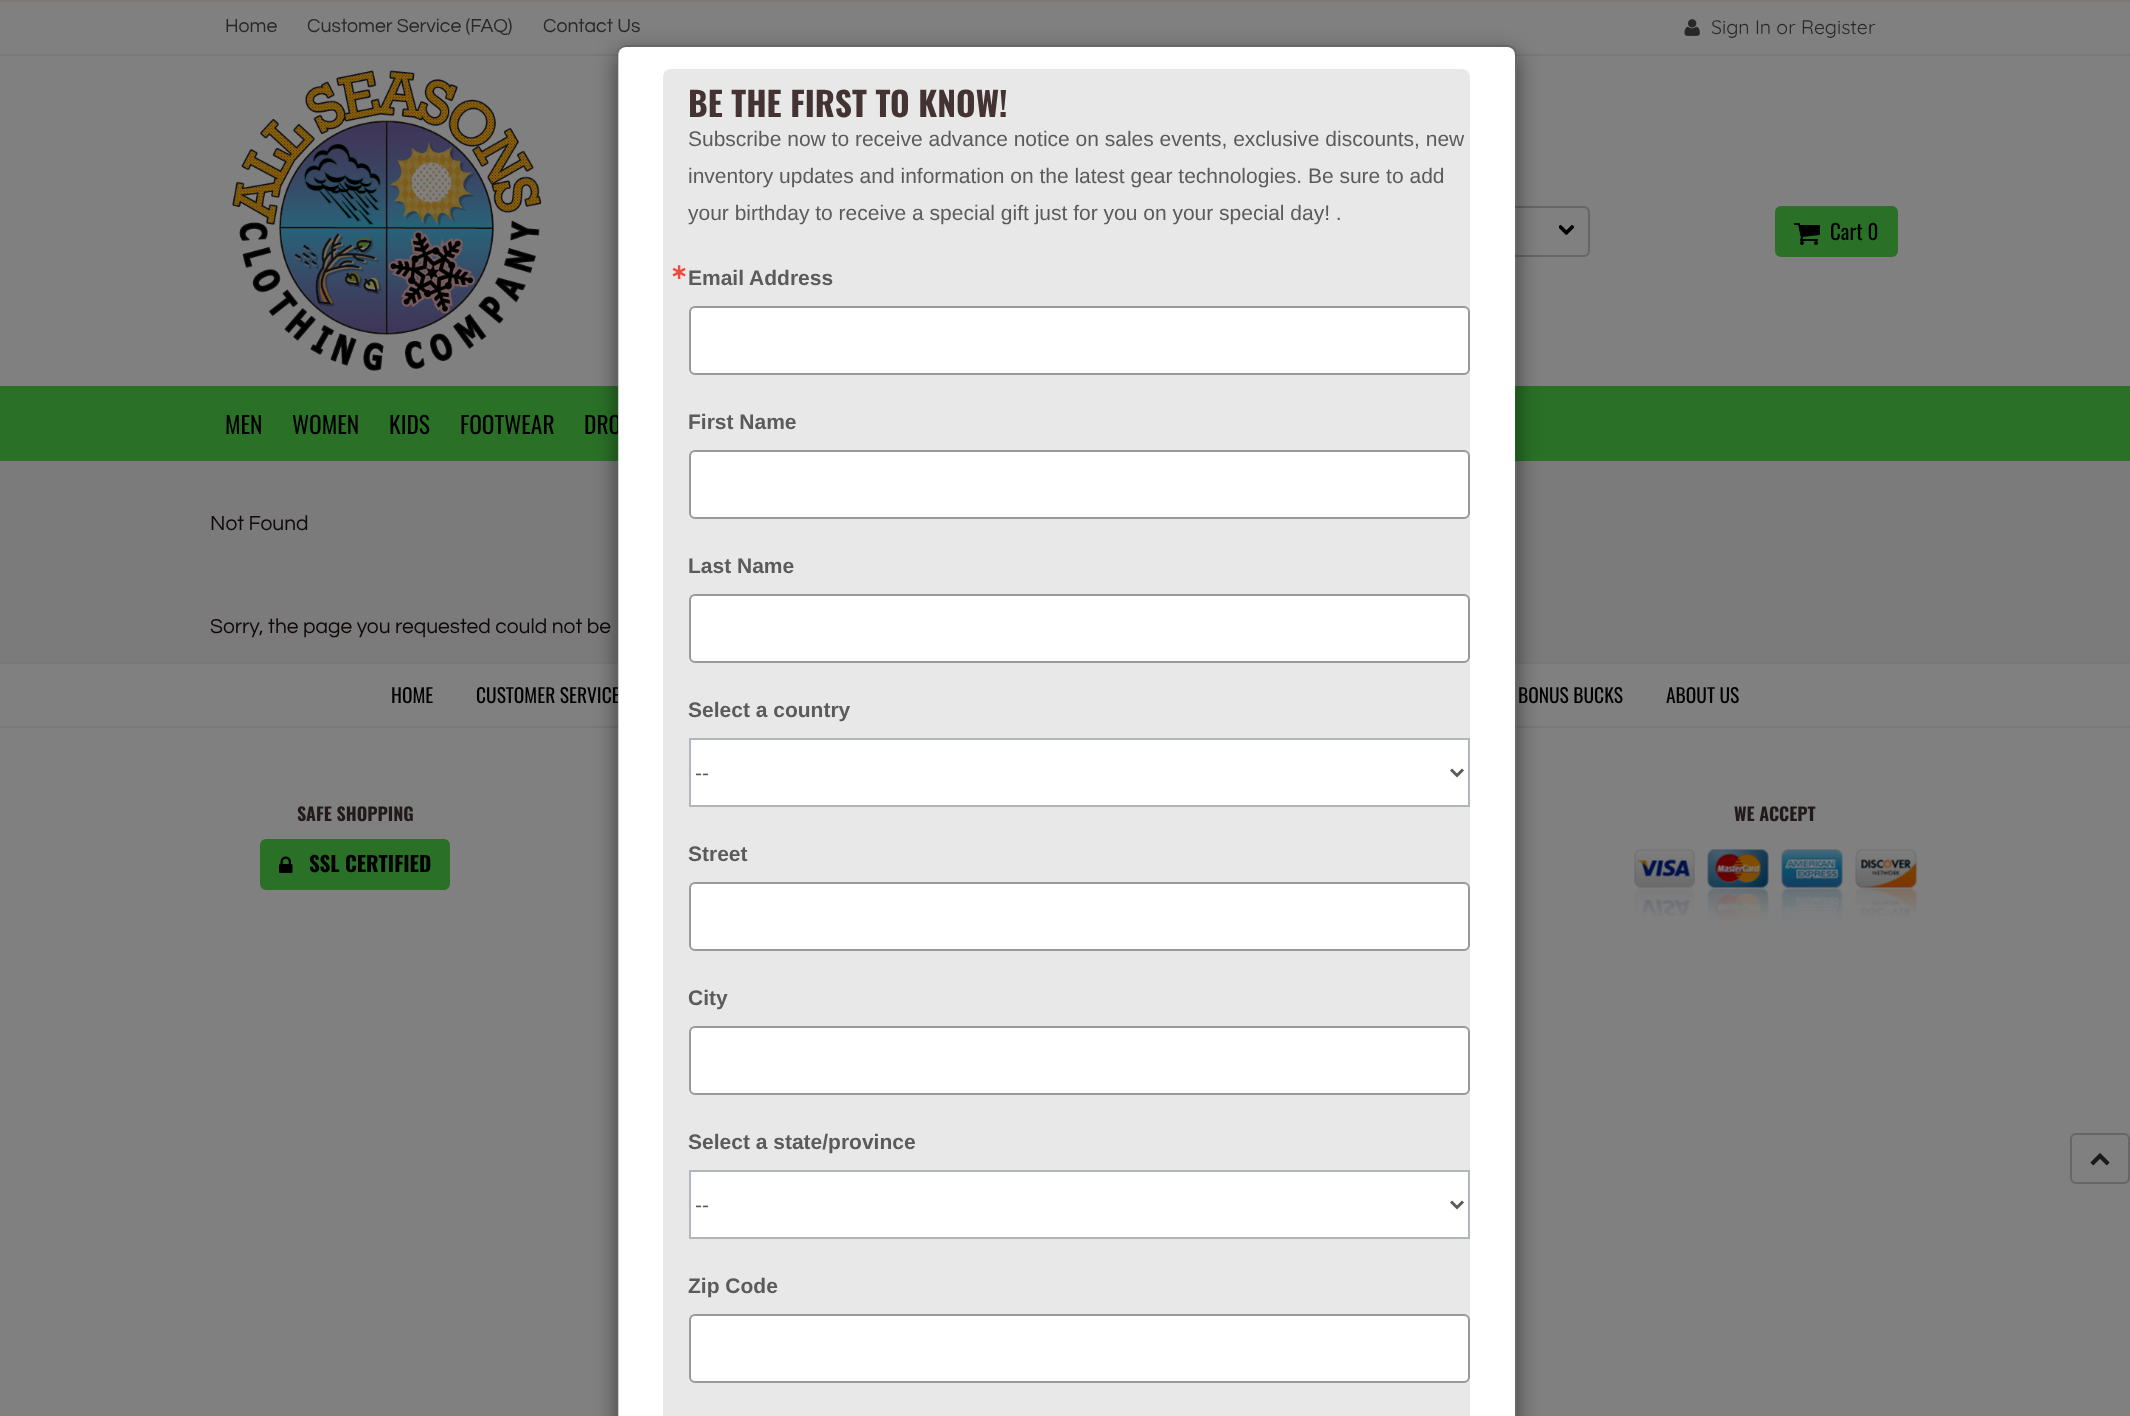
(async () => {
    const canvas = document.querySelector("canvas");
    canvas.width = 2130;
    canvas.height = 1416;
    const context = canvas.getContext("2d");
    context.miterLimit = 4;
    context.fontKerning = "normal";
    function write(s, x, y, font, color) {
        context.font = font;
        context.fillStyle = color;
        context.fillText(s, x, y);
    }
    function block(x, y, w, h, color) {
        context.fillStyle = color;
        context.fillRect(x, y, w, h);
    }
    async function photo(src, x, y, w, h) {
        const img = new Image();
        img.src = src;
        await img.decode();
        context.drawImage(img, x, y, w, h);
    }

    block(0, 0, 2130, 1416, "rgb(128, 128, 128)");
    block(0, 0, 2130, 2, "rgb(123, 119, 117)");
    block(0, 54, 2130, 2, "rgb(123, 119, 117)");
    write("Home", 225, 32, "19.5px Questrial", "rgb(40, 40, 40)");
    write("Customer Service (FAQ)", 307, 32, "19.5px Questrial", "rgb(40, 40, 40)");
    write("Contact Us", 543, 32, "19.5px Questrial", "rgb(40, 40, 40)");
    await photo("media/1.png", 1684, 19, 16, 17);
    write("Sign In or Register", 1711, 34, "19.5px Quicksand", "rgb(40, 40, 40)");
    await photo("media/2.png", 232, 70, 310, 301);
    await photo("media/3.png", 1559, 225, 16, 10);
    context.fillStyle = "rgb(118, 118, 118)";
    context.beginPath();
    context.moveTo(1166, 208);
    context.lineTo(1584, 208);
    context.bezierCurveTo(1586, 208, 1588, 211, 1588, 213);
    context.lineTo(1588, 253);
    context.bezierCurveTo(1589, 252, 1589, 251, 1589, 250);
    context.lineTo(1589, 212);
    context.bezierCurveTo(1589, 209, 1587, 207, 1584, 207);
    context.lineTo(1166, 207);
    context.bezierCurveTo(1163, 207, 1161, 209, 1161, 212);
    context.lineTo(1161, 213);
    context.bezierCurveTo(1161, 211, 1163, 208, 1166, 208);
    context.closePath();
    context.fill();
    context.beginPath();
    context.roundRect(1161, 207, 428, 49, 5);
    context.strokeStyle = "rgb(102, 102, 102)";
    context.lineWidth = 2;
    context.stroke();
    context.fillStyle = "rgb(42, 113, 39)";
    context.beginPath();
    context.roundRect(1776, 207, 121, 49, 5);
    context.fill();
    context.strokeStyle = "rgb(42, 113, 39)";
    context.stroke();
    await photo("media/4.png", 1794, 223, 26, 22);
    write("Cart 0", 1830, 240, "21px Oswald", "rgb(0, 0, 0)");
    block(0, 386, 2130, 75, "rgb(42, 113, 39)");
    write("MEN", 225, 434, "23.5px Oswald", "rgb(0, 0, 0)");
    write("WOMEN", 292, 434, "23.5px Oswald", "rgb(0, 0, 0)");
    write("KIDS", 389, 434, "23.5px Oswald", "rgb(0, 0, 0)");
    write("FOOTWEAR", 460, 434, "23.5px Oswald", "rgb(0, 0, 0)");
    write("DRO", 584, 434, "23.5px Oswald", "rgb(0, 0, 0)");
    block(0, 461, 2130, 201, "rgb(123, 123, 123)");
    write("Not Found", 210, 530, "21px Questrial", "rgb(17, 9, 9)");
    write("Sorry, the page you requested could not be", 210, 633, "21px Questrial", "rgb(17, 9, 9)");
    block(0, 662, 2130, 2, "rgb(123, 119, 117)");
    block(0, 726, 2130, 2, "rgb(123, 119, 117)");
    write("HOME", 391, 703, "19.5px Oswald", "rgb(0, 0, 0)");
    write("CUSTOMER SERVICE", 476, 703, "19.5px Oswald", "rgb(0, 0, 0)");
    write("BONUS BUCKS", 1518, 703, "19.5px Oswald", "rgb(0, 0, 0)");
    write("ABOUT US", 1666, 703, "19.5px Oswald", "rgb(0, 0, 0)");
    write("SAFE SHOPPING", 297, 821, "bold 18px Oswald", "rgb(34, 26, 26)");
    context.fillStyle = "rgb(42, 113, 39)";
    context.beginPath();
    context.roundRect(261, 840, 188, 49, 5);
    context.fill();
    context.stroke();
    await photo("media/5.png", 279, 856, 14, 17);
    write("SSL CERTIFIED", 309, 872, "bold 21px Oswald", "rgb(0, 0, 0)");
    await photo("media/6.png", 1634, 849, 283, 71);
    write("WE ACCEPT", 1734, 821, "bold 18px Oswald", "rgb(34, 26, 26)");
    context.beginPath();
    context.roundRect(2071, 1134, 58, 49, 5);
    context.strokeStyle = "rgb(102, 102, 102)";
    context.stroke();
    await photo("media/7.png", 2090, 1153, 20, 13);
    context.save();
    context.beginPath();
    context.moveTo(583, 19);
    context.lineTo(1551, 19);
    context.lineTo(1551, 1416);
    context.lineTo(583, 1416);
    context.closePath();
    context.moveTo(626, 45);
    context.lineTo(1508, 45);
    context.bezierCurveTo(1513, 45, 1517, 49, 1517, 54);
    context.lineTo(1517, 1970);
    context.bezierCurveTo(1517, 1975, 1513, 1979, 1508, 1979);
    context.lineTo(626, 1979);
    context.bezierCurveTo(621, 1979, 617, 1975, 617, 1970);
    context.lineTo(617, 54);
    context.bezierCurveTo(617, 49, 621, 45, 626, 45);
    context.closePath();
    context.clip("evenodd");
    context.fillStyle = "rgba(0, 0, 0, 0.5)";
    context.filter = "blur(11px)";
    context.beginPath();
    context.roundRect(617, 53, 900, 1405, 9);
    context.fill();
    context.filter = "none";
    context.restore();
    context.fillStyle = "rgb(255, 255, 255)";
    context.beginPath();
    context.roundRect(618, 47, 897, 1369, [8, 8, 0, 0]);
    context.fill();
    context.beginPath();
    context.roundRect(618, 46, 898, 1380, 8);
    context.strokeStyle = "rgba(0, 0, 0, 0.2)";
    context.stroke();
    context.fillStyle = "rgb(232, 232, 232)";
    context.beginPath();
    context.roundRect(663, 69, 807, 1347, [8, 8, 0, 0]);
    context.fill();
    write("BE THE FIRST TO KNOW!", 688, 117, "bold 33.5px Oswald", "rgb(68, 51, 51)");
    write("Subscribe now to receive advance notice on sales events, exclusive discounts, new", 688, 146, "21px Liberation Sans", "rgb(91, 91, 91)");
    write("inventory updates and information on the latest gear technologies. Be sure to add", 688, 183, "21px Liberation Sans", "rgb(91, 91, 91)");
    write("your birthday to receive a special gift just for you on your special day! .", 688, 220, "21px Liberation Sans", "rgb(91, 91, 91)");
    write("∗", 670, 279, "bold 21px DejaVu Sans", "rgb(245, 70, 59)");
    write("Email Address", 688, 285, "bold 21px Liberation Sans", "rgb(91, 91, 91)");
    context.fillStyle = "rgb(255, 255, 255)";
    context.beginPath();
    context.roundRect(690, 307, 779, 67, 5);
    context.fill();
    context.strokeStyle = "rgb(153, 153, 153)";
    context.stroke();
    write("First Name", 688, 429, "bold 21px Liberation Sans", "rgb(91, 91, 91)");
    context.fillStyle = "rgb(255, 255, 255)";
    context.beginPath();
    context.roundRect(690, 451, 779, 67, 5);
    context.fill();
    context.stroke();
    write("Last Name", 688, 573, "bold 21px Liberation Sans", "rgb(91, 91, 91)");
    context.fillStyle = "rgb(255, 255, 255)";
    context.beginPath();
    context.roundRect(690, 595, 779, 67, 5);
    context.fill();
    context.stroke();
    write("Select a country", 688, 717, "bold 21px Liberation Sans", "rgb(91, 91, 91)");
    context.fillStyle = "rgb(255, 255, 255)";
    context.beginPath();
    context.rect(690, 739, 779, 67);
    context.fill();
    context.strokeStyle = "rgb(176, 182, 187)";
    context.stroke();
    context.beginPath();
    context.moveTo(1451, 769.5);
    context.lineTo(1457, 775.5);
    context.lineTo(1463, 769.5);
    context.strokeStyle = "rgb(91, 91, 91)";
    context.lineWidth = 3;
    context.stroke();
    write("--", 695, 780, "21px Liberation Sans", "rgb(91, 91, 91)");
    write("Street", 688, 861, "bold 21px Liberation Sans", "rgb(91, 91, 91)");
    context.fillStyle = "rgb(255, 255, 255)";
    context.beginPath();
    context.roundRect(690, 883, 779, 67, 5);
    context.fill();
    context.strokeStyle = "rgb(153, 153, 153)";
    context.lineWidth = 2;
    context.stroke();
    write("City", 688, 1005, "bold 21px Liberation Sans", "rgb(91, 91, 91)");
    context.fillStyle = "rgb(255, 255, 255)";
    context.beginPath();
    context.roundRect(690, 1027, 779, 67, 5);
    context.fill();
    context.stroke();
    write("Select a state/province", 688, 1149, "bold 21px Liberation Sans", "rgb(91, 91, 91)");
    context.fillStyle = "rgb(255, 255, 255)";
    context.beginPath();
    context.rect(690, 1171, 779, 67);
    context.fill();
    context.strokeStyle = "rgb(176, 182, 187)";
    context.stroke();
    context.beginPath();
    context.moveTo(1451, 1201.5);
    context.lineTo(1457, 1207.5);
    context.lineTo(1463, 1201.5);
    context.strokeStyle = "rgb(91, 91, 91)";
    context.lineWidth = 3;
    context.stroke();
    write("--", 695, 1212, "21px Liberation Sans", "rgb(91, 91, 91)");
    write("Zip Code", 688, 1293, "bold 21px Liberation Sans", "rgb(91, 91, 91)");
    context.fillStyle = "rgb(255, 255, 255)";
    context.beginPath();
    context.roundRect(690, 1315, 779, 67, 5);
    context.fill();
    context.strokeStyle = "rgb(153, 153, 153)";
    context.lineWidth = 2;
    context.stroke();
})();
